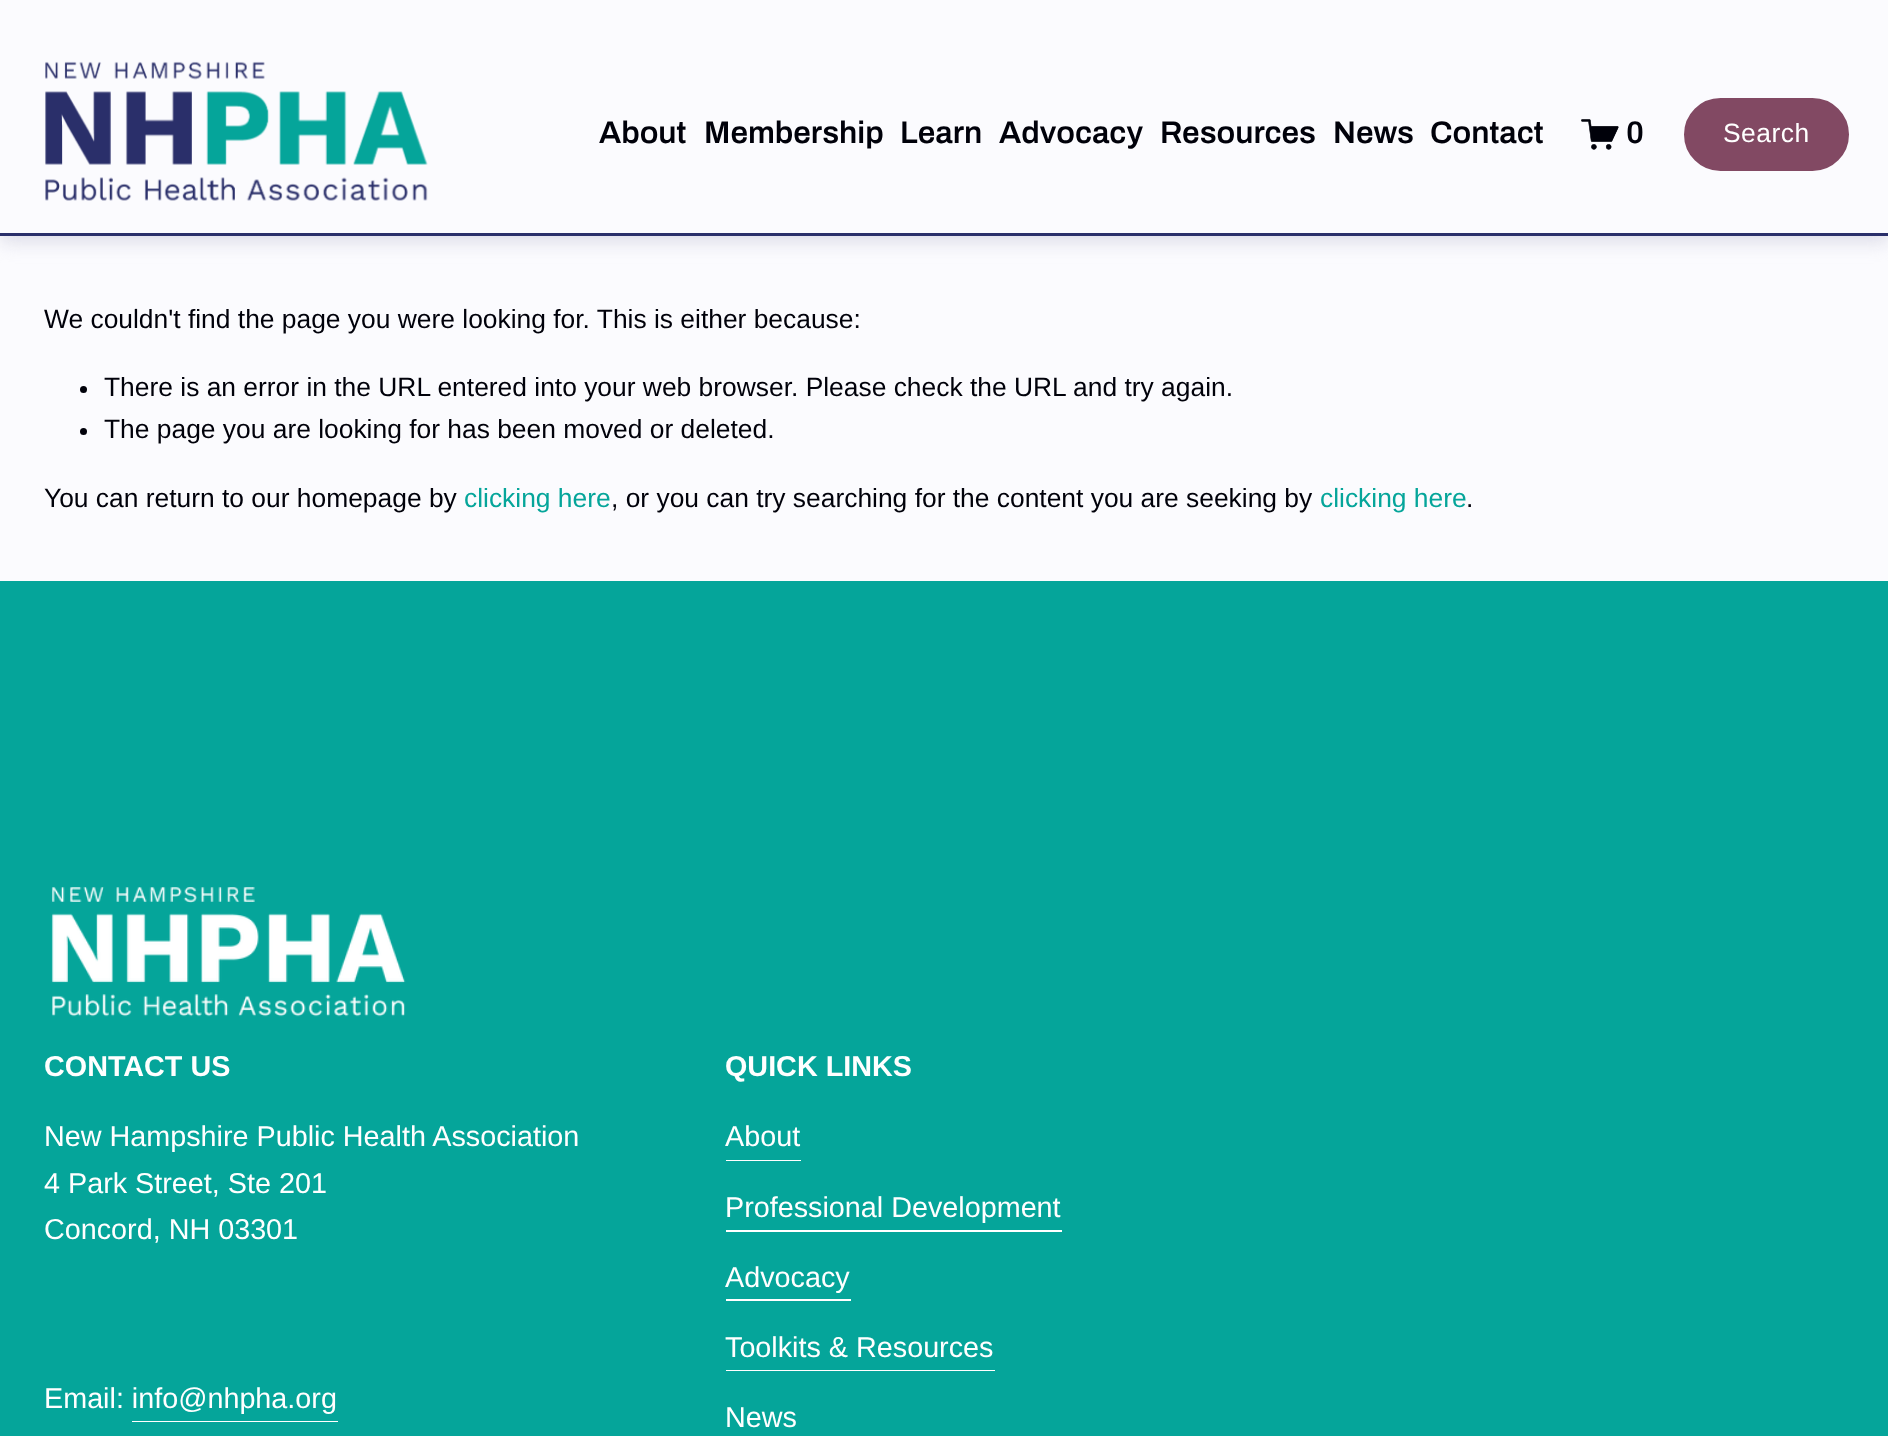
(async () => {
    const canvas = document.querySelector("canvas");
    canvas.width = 1888;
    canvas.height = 1436;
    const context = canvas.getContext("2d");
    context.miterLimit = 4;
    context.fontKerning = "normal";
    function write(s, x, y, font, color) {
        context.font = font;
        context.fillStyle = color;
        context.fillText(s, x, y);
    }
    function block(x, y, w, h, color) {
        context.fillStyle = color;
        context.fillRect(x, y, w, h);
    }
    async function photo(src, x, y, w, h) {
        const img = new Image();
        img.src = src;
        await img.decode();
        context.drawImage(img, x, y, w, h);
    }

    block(0, 0, 1888, 1436, "rgb(251, 251, 254)");
    context.fillStyle = "rgb(220, 220, 232)";
    context.filter = "blur(9px)";
    context.beginPath();
    context.rect(0, 6, 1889, 236);
    context.fill();
    context.filter = "none";
    block(0, 0, 1888, 233, "rgb(251, 251, 254)");
    await photo("media/1.png", 45, 61, 383, 140);
    write("About", 599, 143, "600 31.25px Archivo", "rgb(0, 1, 10)");
    write("Membership", 704, 143, "600 31.25px Archivo", "rgb(0, 1, 10)");
    write("Learn", 900, 143, "600 31.25px Archivo", "rgb(0, 1, 10)");
    write("Advocacy", 999, 143, "600 31.25px Archivo", "rgb(0, 1, 10)");
    write("Resources", 1160, 143, "600 31.25px Archivo", "rgb(0, 1, 10)");
    write("News", 1333, 143, "600 31.25px Archivo", "rgb(0, 1, 10)");
    write("Contact", 1430, 143, "600 31.25px Archivo", "rgb(0, 1, 10)");
    await photo("media/2.png", 1581, 119, 38, 31);
    write("0", 1626, 143, "600 31.25px Archivo", "rgb(0, 1, 10)");
    context.fillStyle = "rgb(130, 73, 99)";
    context.beginPath();
    context.roundRect(1683, 97, 167, 75, 37.5);
    context.fill();
    context.strokeStyle = "rgb(251, 251, 254)";
    context.lineWidth = 2;
    context.stroke();
    context.letterSpacing = "0.5px";
    write("Search", 1723, 142, "26.4px Liberation Sans", "rgb(255, 255, 255)");
    block(0, 233, 1888, 3, "rgb(42, 47, 106)");
    context.letterSpacing = "0px";
    write("We couldn't find the page you were looking for. This is either because:", 44, 328, "26.4px Liberation Sans", "rgb(0, 1, 10)");
    context.beginPath();
    context.arc(83.5, 389.5, 3.5, 0, Math.PI * 2);
    context.fill();
    write("There is an error in the URL entered into your web browser. Please check the URL and try again.", 104, 396, "26.4px Liberation Sans", "rgb(0, 1, 10)");
    context.beginPath();
    context.arc(83.5, 431.5, 3.5, 0, Math.PI * 2);
    context.fill();
    write("The page you are looking for has been moved or deleted.", 104, 438, "26.4px Liberation Sans", "rgb(0, 1, 10)");
    write("You can return to our homepage by", 44, 507, "26.4px Liberation Sans", "rgb(0, 1, 10)");
    write("clicking here", 464, 507, "26.4px Liberation Sans", "rgb(5, 165, 154)");
    write(", or you can try searching for the content you are seeking by", 611, 507, "26.4px Liberation Sans", "rgb(0, 1, 10)");
    write("clicking here", 1320, 507, "26.4px Liberation Sans", "rgb(5, 165, 154)");
    write(".", 1466, 507, "26.4px Liberation Sans", "rgb(0, 1, 10)");
    block(0, 581, 1888, 855, "rgb(5, 165, 154)");
    await photo("media/3.png", 51, 886, 355, 131);
    write("CONTACT US", 44, 1076, "bold 28.75px Liberation Sans", "rgb(255, 255, 255)");
    write("New Hampshire Public Health Association", 44, 1146, "28.75px Liberation Sans", "rgb(255, 255, 255)");
    write("4 Park Street, Ste 201", 44, 1193, "28.75px Liberation Sans", "rgb(255, 255, 255)");
    write("Concord, NH 03301", 44, 1239, "28.75px Liberation Sans", "rgb(255, 255, 255)");
    write("QUICK LINKS", 725, 1076, "bold 28.75px Liberation Sans", "rgb(255, 255, 255)");
    block(726, 1160, 75, 1, "rgb(255, 255, 255)");
    write("About", 725, 1146, "28.75px Liberation Sans", "rgb(255, 255, 255)");
    block(726, 1230, 336, 2, "rgb(255, 255, 255)");
    write("Professional Development", 725, 1217, "28.75px Liberation Sans", "rgb(255, 255, 255)");
    block(726, 1299, 125, 2, "rgb(255, 255, 255)");
    write("Advocacy", 725, 1287, "28.75px Liberation Sans", "rgb(255, 255, 255)");
    block(726, 1370, 269, 1, "rgb(255, 255, 255)");
    write("Toolkits & Resources", 725, 1357, "28.75px Liberation Sans", "rgb(255, 255, 255)");
    write("News", 725, 1427, "28.75px Liberation Sans", "rgb(255, 255, 255)");
    write("Email: info@nhpha.org", 44, 1408, "28.75px Liberation Sans", "rgb(255, 255, 255)");
    block(132, 1421, 206, 1, "rgb(255, 255, 255)");
})();
